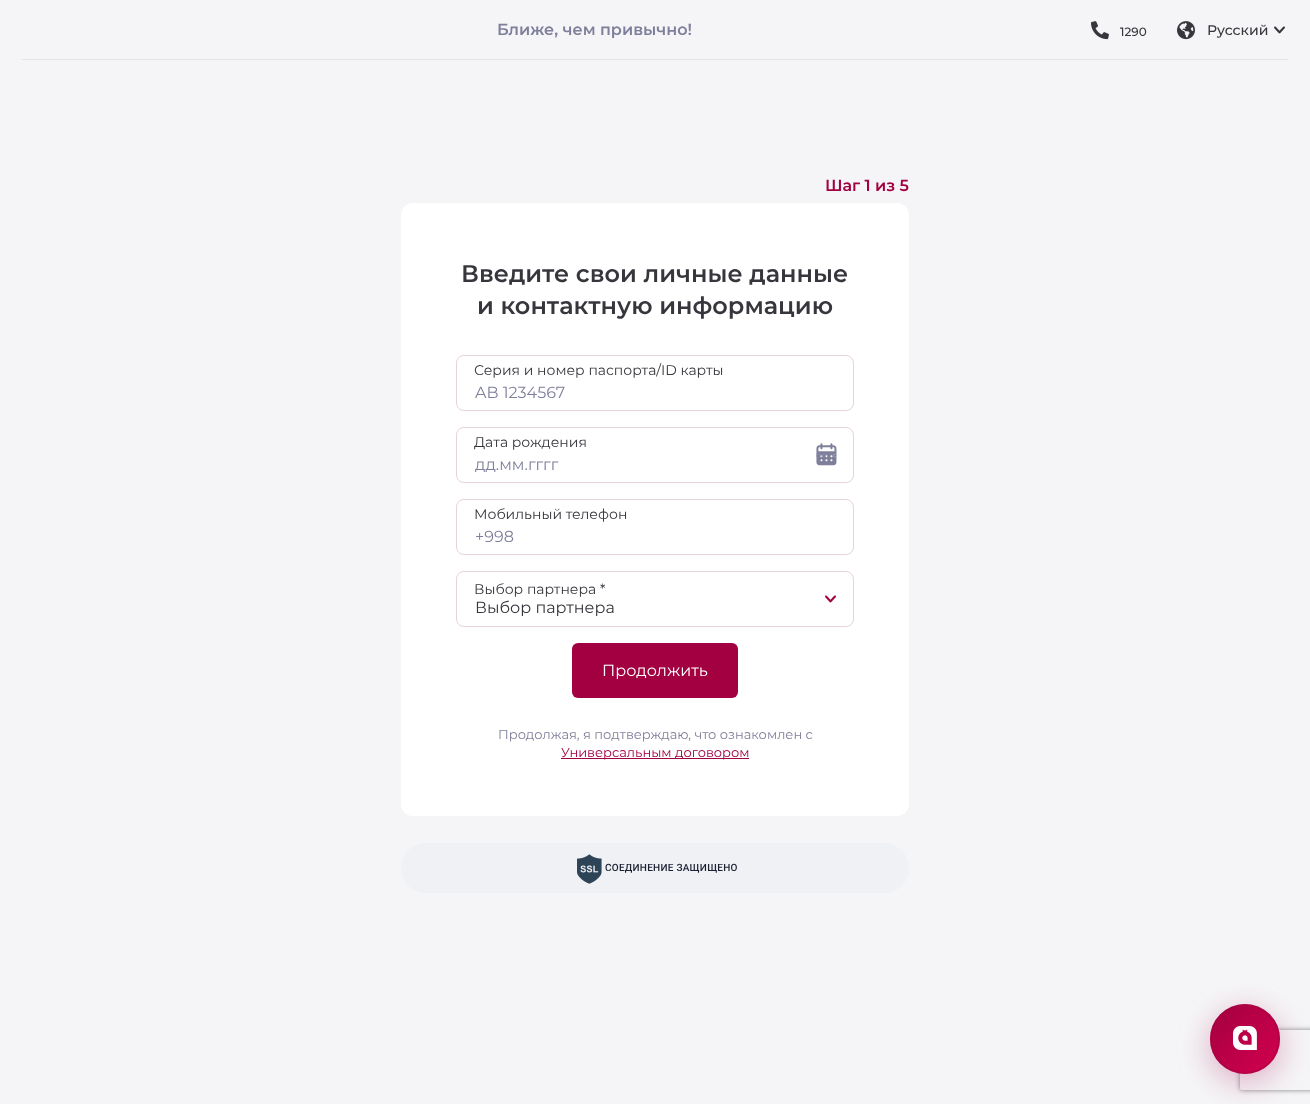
(async () => {
    const canvas = document.querySelector("canvas");
    canvas.width = 1310;
    canvas.height = 1104;
    const context = canvas.getContext("2d");
    context.miterLimit = 4;
    context.fontKerning = "normal";
    function write(s, x, y, font, color) {
        context.font = font;
        context.fillStyle = color;
        context.fillText(s, x, y);
    }
    function block(x, y, w, h, color) {
        context.fillStyle = color;
        context.fillRect(x, y, w, h);
    }
    function card(x, y, w, h, r, color) {
        context.fillStyle = color;
        context.beginPath();
        context.roundRect(x, y, w, h, r);
        context.fill();
    }
    async function photo(src, x, y, w, h) {
        const img = new Image();
        img.src = src;
        await img.decode();
        context.drawImage(img, x, y, w, h);
    }
    let gradient;

    block(0, 0, 1310, 1104, "rgb(245, 245, 247)");
    write("Ближе, чем привычно!", 497, 35, "600 16px Montserrat", "rgb(127, 127, 155)");
    await photo("media/1.png", 1091, 21, 18, 19);
    write("1290", 1120, 36, "500 12px Montserrat", "rgb(55, 54, 60)");
    await photo("media/2.png", 1177, 21, 18, 19);
    write("Русский", 1207, 35, "500 14px Montserrat", "rgb(55, 54, 60)");
    await photo("media/3.png", 1274, 26, 11, 8);
    block(22, 59, 1266, 1, "rgb(227, 227, 233)");
    write("Шаг 1 из 5", 825, 191, "600 16px Montserrat", "rgb(163, 0, 65)");
    card(401, 203, 508, 613, 12, "rgb(255, 255, 255)");
    write("Введите свои личные данные", 461, 282, "600 24px Montserrat", "rgb(55, 54, 60)");
    write("и контактную информацию", 477, 314, "600 24px Montserrat", "rgb(55, 54, 60)");
    context.beginPath();
    context.roundRect(456.5, 355.5, 397, 55, 7.5);
    context.strokeStyle = "rgb(231, 210, 219)";
    context.stroke();
    write("Серия и номер паспорта/ID карты", 474, 375, "14px Montserrat", "rgb(55, 54, 60)");
    write("AB 1234567", 475, 398, "16px Montserrat", "rgb(127, 127, 155)");
    context.beginPath();
    context.roundRect(456.5, 427.5, 397, 55, 7.5);
    context.stroke();
    write("Дата рождения", 474, 447, "14px Montserrat", "rgb(55, 54, 60)");
    await photo("media/4.png", 816, 443, 21, 23);
    write("mm", 816, 457, "6px Montserrat", "rgb(144, 144, 169)");
    write("d", 833, 457, "6px Montserrat", "rgb(178, 178, 195)");
    write("дд.мм.гггг", 475, 470, "16px Montserrat", "rgb(127, 127, 155)");
    context.beginPath();
    context.roundRect(456.5, 499.5, 397, 55, 7.5);
    context.stroke();
    write("Мобильный телефон", 474, 519, "14px Montserrat", "rgb(55, 54, 60)");
    write("+998", 475, 542, "16px Montserrat", "rgb(127, 127, 155)");
    context.beginPath();
    context.roundRect(456.5, 571.5, 397, 55, 7.5);
    context.stroke();
    write("Выбор партнера *", 474, 594, "14px Montserrat", "rgb(55, 54, 60)");
    await photo("media/5.png", 825, 595, 11, 8);
    write("Выбор партнера", 475, 613, "16px Montserrat", "rgb(55, 54, 60)");
    card(572, 643, 166, 55, 6, "rgb(163, 0, 65)");
    write("Продолжить", 602, 676, "16px Montserrat", "rgb(255, 255, 255)");
    write("Продолжая, я подтверждаю, что ознакомлен с", 498, 739, "13px Montserrat", "rgb(127, 127, 155)");
    block(561, 758, 188, 1, "rgb(163, 0, 65)");
    write("Универсальным договором", 561, 757, "13px Montserrat", "rgb(163, 0, 65)");
    card(401, 843, 508, 50, 25, "rgb(240, 241, 245)");
    await photo("media/6.png", 577, 854, 25, 30);
    context.letterSpacing = "0.25px";
    write("СОЕДИНЕНИЕ ЗАЩИЩЕНО", 605, 871, "500 10px Roboto", "rgb(30, 33, 51)");
    context.fillStyle = "rgba(163, 0, 65, 0.3)";
    context.filter = "blur(16px)";
    context.beginPath();
    context.roundRect(1210, 1012, 70, 70, 35);
    context.fill();
    context.filter = "none";
    context.save();
    context.beginPath();
    context.moveTo(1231, 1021);
    context.lineTo(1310, 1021);
    context.lineTo(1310, 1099);
    context.lineTo(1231, 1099);
    context.closePath();
    context.moveTo(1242, 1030);
    context.lineTo(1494, 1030);
    context.bezierCurveTo(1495, 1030, 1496, 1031, 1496, 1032);
    context.lineTo(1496, 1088);
    context.bezierCurveTo(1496, 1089, 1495, 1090, 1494, 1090);
    context.lineTo(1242, 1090);
    context.bezierCurveTo(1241, 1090, 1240, 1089, 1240, 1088);
    context.lineTo(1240, 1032);
    context.bezierCurveTo(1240, 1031, 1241, 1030, 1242, 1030);
    context.closePath();
    context.clip("evenodd");
    context.fillStyle = "rgb(128, 128, 128)";
    context.filter = "blur(2.5px)";
    context.beginPath();
    context.roundRect(1240, 1030, 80, 60, 2);
    context.fill();
    context.filter = "none";
    context.restore();
    gradient = context.createLinearGradient(1210, 1004, 1280, 1074);
    gradient.addColorStop(0, "rgb(163, 0, 65)");
    gradient.addColorStop(1, "rgb(212, 0, 78)");
    context.fillStyle = gradient;
    context.beginPath();
    context.arc(1245, 1039, 35, 0, Math.PI * 2);
    context.fill();
    context.beginPath();
    context.arc(1245, 1039, 34, 0, Math.PI * 2);
    context.strokeStyle = "rgba(163, 0, 65, 0.3)";
    context.lineWidth = 2;
    context.stroke();
    context.beginPath();
    context.arc(1245, 1039, 34, 0, Math.PI * 2);
    context.strokeStyle = "rgba(163, 0, 65, 0.2)";
    context.stroke();
    await photo("media/7.png", 1233, 1026, 24, 24);
})();
